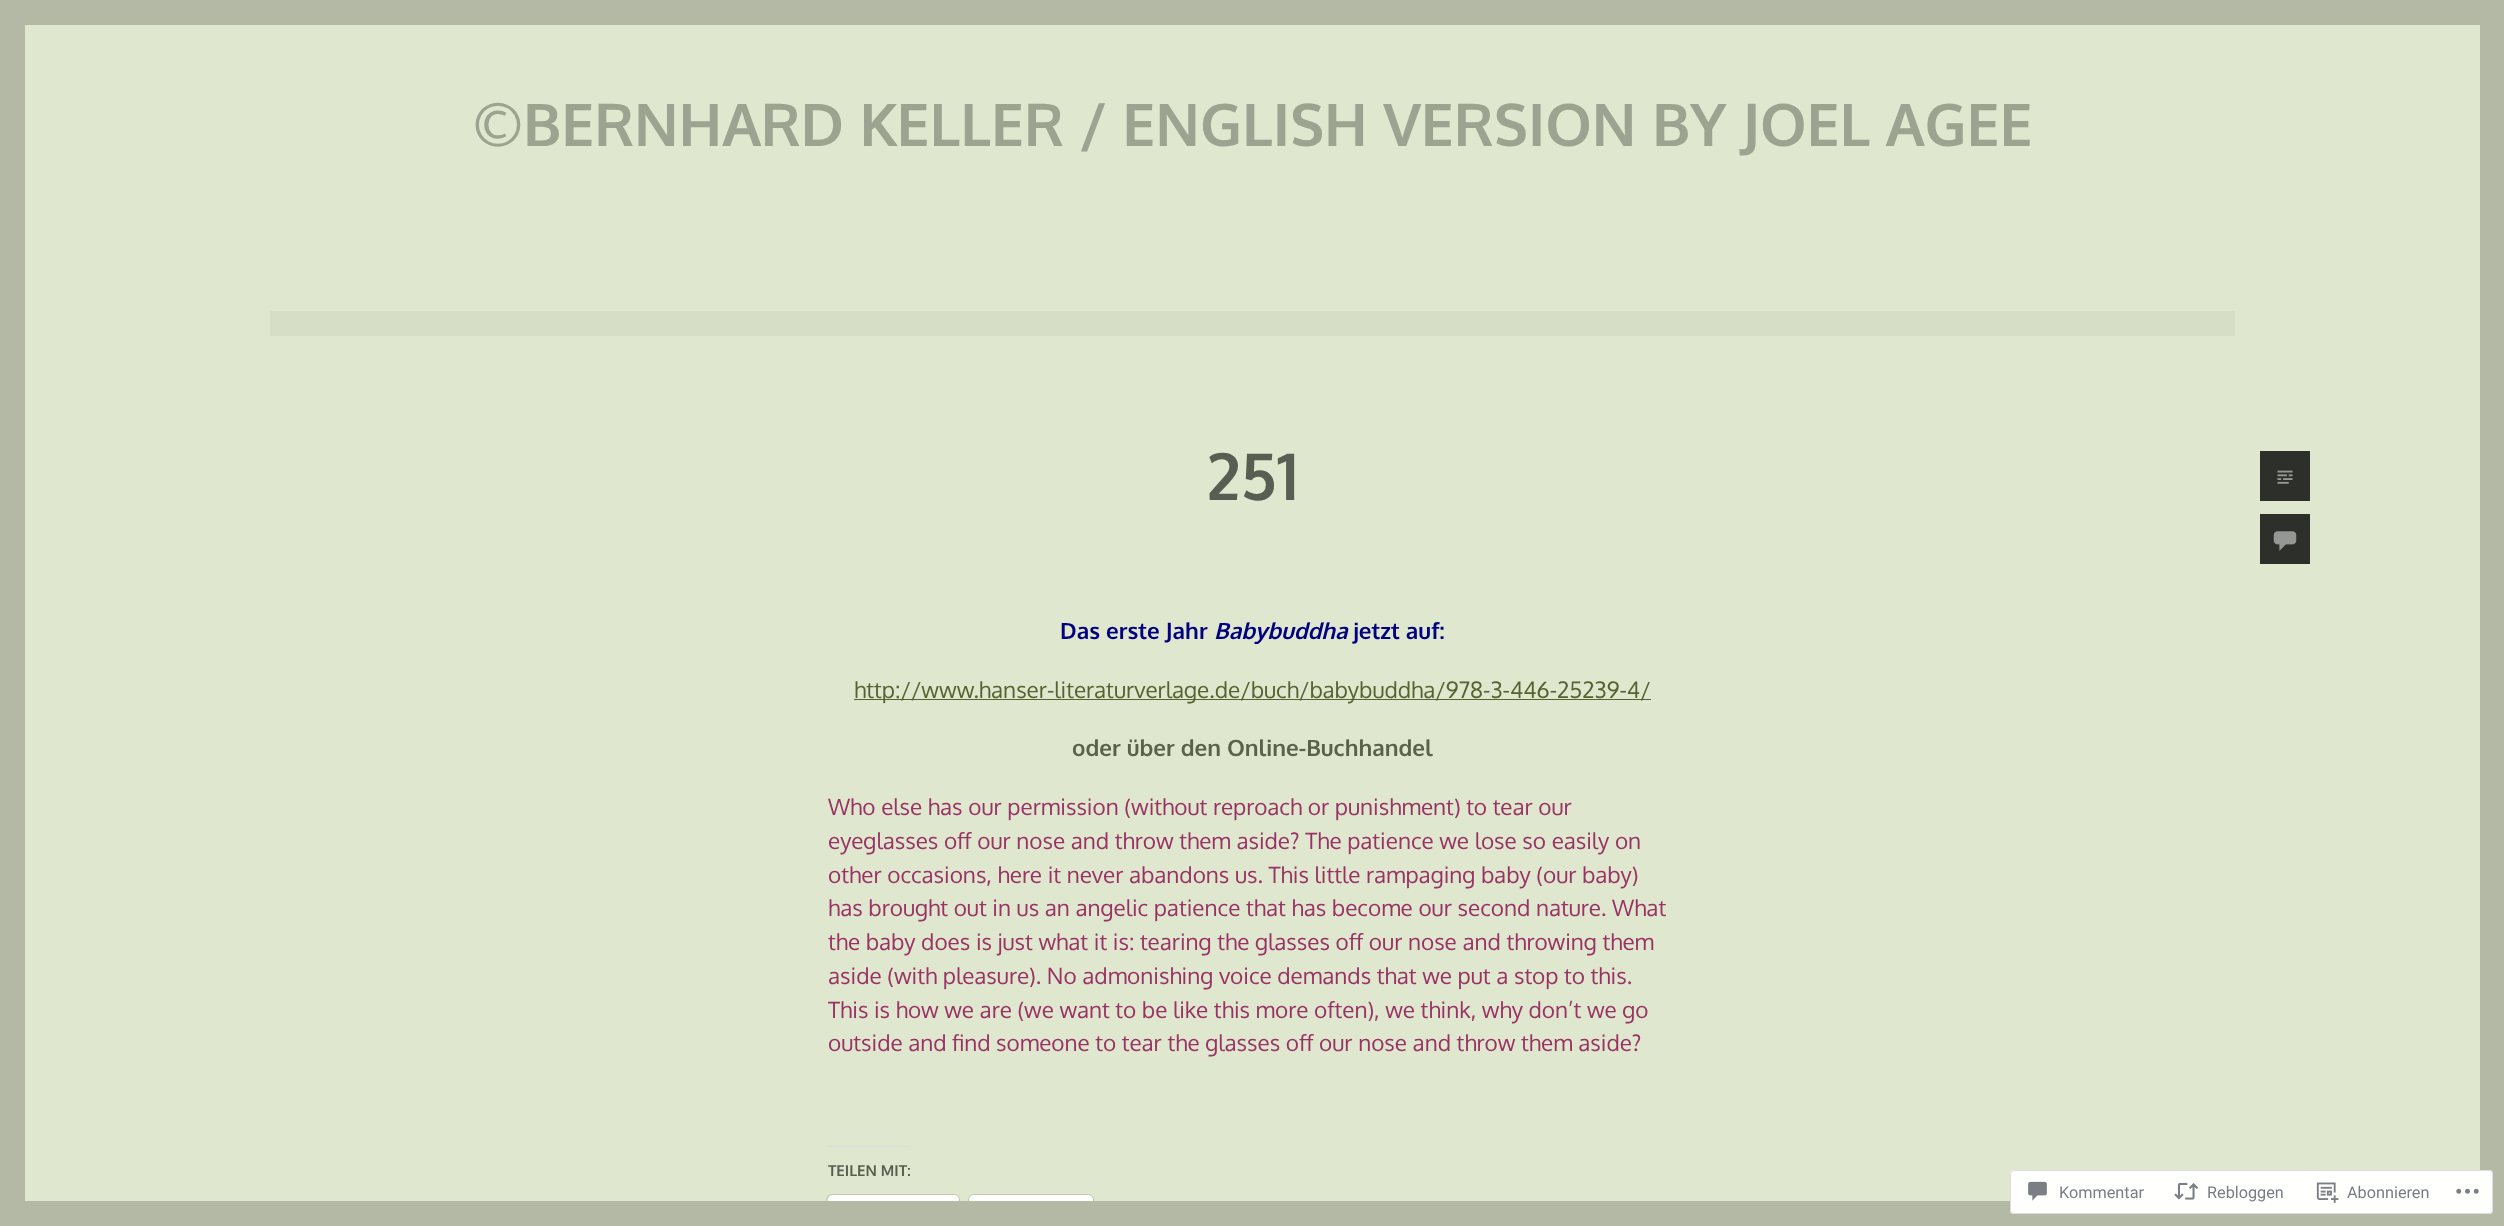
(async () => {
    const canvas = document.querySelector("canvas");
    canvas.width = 2504;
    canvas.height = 1226;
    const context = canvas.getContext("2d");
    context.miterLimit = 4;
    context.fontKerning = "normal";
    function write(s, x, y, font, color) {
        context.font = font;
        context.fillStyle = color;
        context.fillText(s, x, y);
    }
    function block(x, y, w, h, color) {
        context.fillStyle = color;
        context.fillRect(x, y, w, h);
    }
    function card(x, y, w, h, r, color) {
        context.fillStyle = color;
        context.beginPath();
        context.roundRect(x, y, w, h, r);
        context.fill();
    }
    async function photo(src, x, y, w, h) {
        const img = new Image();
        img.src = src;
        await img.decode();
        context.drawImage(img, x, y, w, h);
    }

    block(0, 0, 2504, 1226, "rgb(223, 231, 206)");
    block(2480, 25, 24, 1176, "rgb(179, 185, 165)");
    block(0, 25, 25, 1176, "rgb(179, 185, 165)");
    block(0, 0, 2504, 25, "rgb(179, 185, 165)");
    block(270, 311, 1965, 25, "rgb(214, 222, 198)");
    write("©BERNHARD KELLER / ENGLISH VERSION BY JOEL AGEE", 473, 146, "bold 58.75px Oxygen", "rgb(156, 163, 145)");
    write("251", 1207, 500, "bold 65px Oxygen", "rgb(89, 94, 83)");
    block(2260, 451, 50, 50, "rgb(45, 47, 42)");
    await photo("media/1.png", 2277, 470, 16, 14);
    block(2260, 514, 50, 50, "rgb(45, 47, 42)");
    await photo("media/2.png", 2273, 531, 24, 20);
    write("Das erste Jahr", 1060, 639, "bold 22.5px Oxygen", "rgb(0, 0, 128)");
    write("Babybuddha", 1214, 639, "italic bold 22.5px Oxygen", "rgb(0, 0, 128)");
    write("jetzt auf:", 1353, 639, "bold 22.5px Oxygen", "rgb(0, 0, 128)");
    block(854, 699, 797, 1, "rgb(85, 99, 48)");
    write("http://www.hanser-literaturverlage.de/buch/babybuddha/978-3-446-25239-4/", 854, 698, "22.5px Oxygen", "rgb(85, 99, 48)");
    write("oder über den Online-Buchhandel", 1072, 756, "bold 22.5px Oxygen", "rgb(90, 97, 76)");
    write("Who else has our permission (without reproach or punishment) to tear our", 828, 815, "22.5px Oxygen", "rgb(153, 51, 102)");
    write("eyeglasses off our nose and throw them aside? The patience we lose so easily on", 828, 849, "22.5px Oxygen", "rgb(153, 51, 102)");
    write("other occasions, here it never abandons us. This little rampaging baby (our baby)", 828, 883, "22.5px Oxygen", "rgb(153, 51, 102)");
    write("has brought out in us an angelic patience that has become our second nature. What", 828, 916, "22.5px Oxygen", "rgb(153, 51, 102)");
    write("the baby does is just what it is: tearing the glasses off our nose and throwing them", 828, 950, "22.5px Oxygen", "rgb(153, 51, 102)");
    write("aside (with pleasure). No admonishing voice demands that we put a stop to this.", 828, 984, "22.5px Oxygen", "rgb(153, 51, 102)");
    write("This is how we are (we want to be like this more often), we think, why don’t we go", 828, 1018, "22.5px Oxygen", "rgb(153, 51, 102)");
    write("outside and find someone to tear the glasses off our nose and throw them aside?", 828, 1051, "22.5px Oxygen", "rgb(153, 51, 102)");
    block(828, 1146, 82, 1, "rgb(220, 220, 222)");
    write("TEILEN MIT:", 828, 1176, "bold 15px Oxygen", "rgb(89, 94, 83)");
    context.beginPath();
    context.roundRect(826.5, 1194.5, 133, 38, 5.5);
    context.strokeStyle = "rgb(196, 203, 181)";
    context.stroke();
    context.fillStyle = "rgba(0, 0, 0, 0.12)";
    context.filter = "blur(1px)";
    context.beginPath();
    context.roundRect(828, 1196, 131, 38, 5);
    context.fill();
    context.filter = "none";
    card(828, 1195, 131, 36, 5, "rgb(255, 255, 255)");
    context.beginPath();
    context.roundRect(968.5, 1194.5, 125, 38, 5.5);
    context.stroke();
    context.fillStyle = "rgba(0, 0, 0, 0.12)";
    context.filter = "blur(1px)";
    context.beginPath();
    context.roundRect(969, 1196, 124, 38, 5);
    context.fill();
    context.filter = "none";
    card(969, 1195, 124, 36, 5, "rgb(255, 255, 255)");
    block(0, 1201, 2504, 25, "rgb(179, 185, 165)");
    card(2010, 1170, 483, 44, 4, "rgba(255, 255, 255, 0.98)");
    context.beginPath();
    context.roundRect(2010.5, 1170.5, 482, 43, 3.5);
    context.strokeStyle = "rgba(220, 220, 222, 0.98)";
    context.stroke();
    await photo("media/3.png", 2028, 1181, 19, 20);
    write("Kommentar", 2059, 1198, "16.25px Roboto", "rgb(122, 126, 132)");
    await photo("media/4.png", 2174, 1182, 25, 18);
    write("Rebloggen", 2207, 1198, "16.25px Roboto", "rgb(122, 126, 132)");
    await photo("media/5.png", 2316, 1182, 23, 21);
    write("Abonnieren", 2347, 1198, "16.25px Roboto", "rgb(122, 126, 132)");
    await photo("media/6.png", 2456, 1188, 23, 6);
})();
